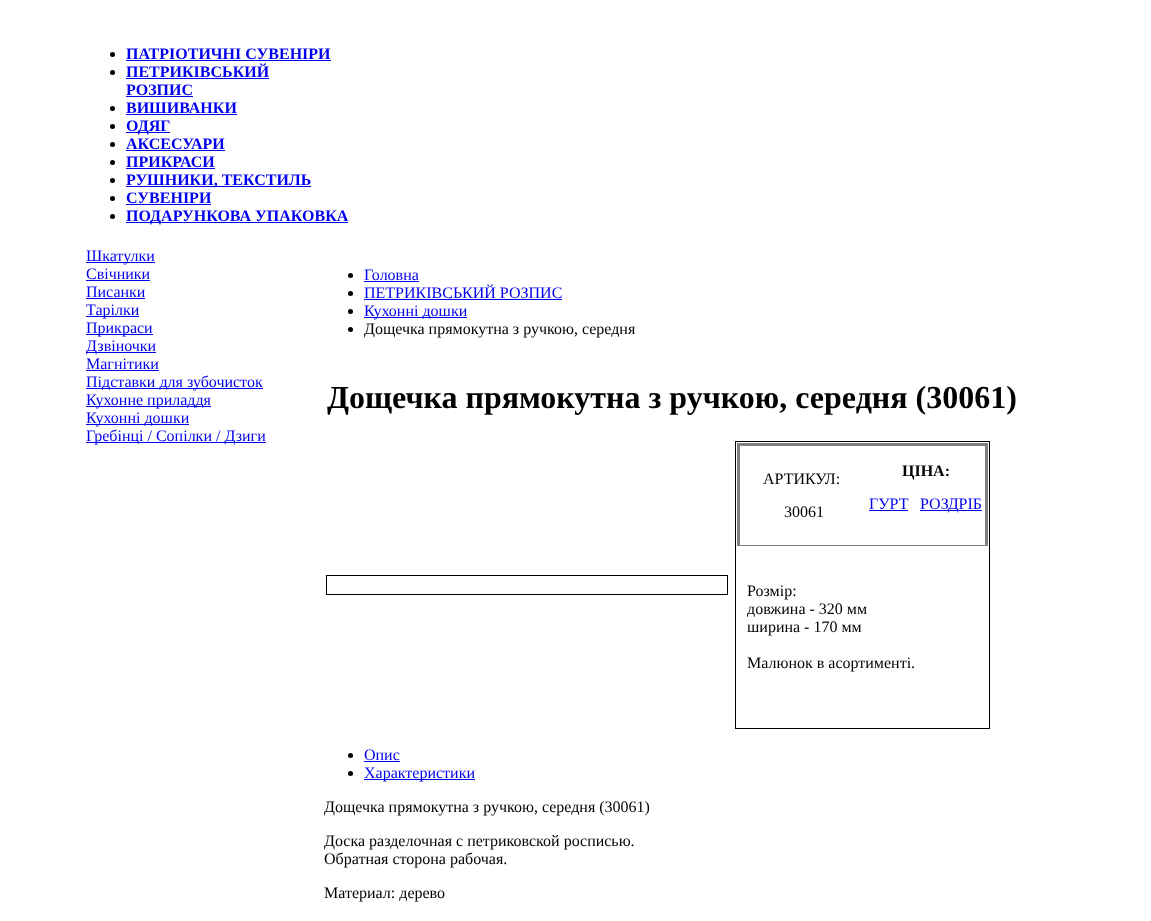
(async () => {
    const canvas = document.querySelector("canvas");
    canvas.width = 1151;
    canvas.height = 921;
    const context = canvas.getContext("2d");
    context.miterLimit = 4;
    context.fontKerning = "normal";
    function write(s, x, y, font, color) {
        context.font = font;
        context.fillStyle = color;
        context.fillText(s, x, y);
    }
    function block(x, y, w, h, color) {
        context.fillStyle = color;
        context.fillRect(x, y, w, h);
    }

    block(0, 0, 1151, 921, "rgb(255, 255, 255)");
    context.fillStyle = "rgb(0, 0, 0)";
    context.beginPath();
    context.arc(112.5, 54.5, 2.5, 0, Math.PI * 2);
    context.fill();
    write("ПАТРІОТИЧНІ СУВЕНІРИ", 126, 59, "bold 16px Liberation Serif", "rgb(0, 0, 238)");
    block(126, 60, 205, 1, "rgb(0, 0, 238)");
    context.fillStyle = "rgb(0, 0, 0)";
    context.beginPath();
    context.arc(112.5, 72.5, 2.5, 0, Math.PI * 2);
    context.fill();
    write("ПЕТРИКІВСЬКИЙ", 126, 77, "bold 16px Liberation Serif", "rgb(0, 0, 238)");
    block(126, 78, 143, 1, "rgb(0, 0, 238)");
    write("РОЗПИС", 126, 95, "bold 16px Liberation Serif", "rgb(0, 0, 238)");
    block(126, 96, 67, 1, "rgb(0, 0, 238)");
    context.fillStyle = "rgb(0, 0, 0)";
    context.beginPath();
    context.arc(112.5, 108.5, 2.5, 0, Math.PI * 2);
    context.fill();
    write("ВИШИВАНКИ", 126, 113, "bold 16px Liberation Serif", "rgb(0, 0, 238)");
    block(126, 114, 111, 1, "rgb(0, 0, 238)");
    context.fillStyle = "rgb(0, 0, 0)";
    context.beginPath();
    context.arc(112.5, 126.5, 2.5, 0, Math.PI * 2);
    context.fill();
    block(126, 132, 44, 1, "rgb(0, 0, 238)");
    write("ОДЯГ", 126, 131, "bold 16px Liberation Serif", "rgb(0, 0, 238)");
    context.fillStyle = "rgb(0, 0, 0)";
    context.beginPath();
    context.arc(112.5, 144.5, 2.5, 0, Math.PI * 2);
    context.fill();
    write("АКСЕСУАРИ", 126, 149, "bold 16px Liberation Serif", "rgb(0, 0, 238)");
    block(126, 150, 99, 1, "rgb(0, 0, 238)");
    context.fillStyle = "rgb(0, 0, 0)";
    context.beginPath();
    context.arc(112.5, 162.5, 2.5, 0, Math.PI * 2);
    context.fill();
    write("ПРИКРАСИ", 126, 167, "bold 16px Liberation Serif", "rgb(0, 0, 238)");
    block(126, 168, 89, 1, "rgb(0, 0, 238)");
    context.fillStyle = "rgb(0, 0, 0)";
    context.beginPath();
    context.arc(112.5, 180.5, 2.5, 0, Math.PI * 2);
    context.fill();
    block(126, 186, 185, 1, "rgb(0, 0, 238)");
    write("РУШНИКИ, ТЕКСТИЛЬ", 126, 185, "bold 16px Liberation Serif", "rgb(0, 0, 238)");
    context.fillStyle = "rgb(0, 0, 0)";
    context.beginPath();
    context.arc(112.5, 198.5, 2.5, 0, Math.PI * 2);
    context.fill();
    write("СУВЕНІРИ", 126, 203, "bold 16px Liberation Serif", "rgb(0, 0, 238)");
    block(126, 204, 85, 1, "rgb(0, 0, 238)");
    context.fillStyle = "rgb(0, 0, 0)";
    context.beginPath();
    context.arc(112.5, 216.5, 2.5, 0, Math.PI * 2);
    context.fill();
    block(126, 222, 222, 1, "rgb(0, 0, 238)");
    write("ПОДАРУНКОВА УПАКОВКА", 126, 221, "bold 16px Liberation Serif", "rgb(0, 0, 238)");
    block(86, 262, 69, 1, "rgb(0, 0, 238)");
    write("Шкатулки", 86, 261, "16px Liberation Serif", "rgb(0, 0, 238)");
    write("Свічники", 86, 279, "16px Liberation Serif", "rgb(0, 0, 238)");
    block(86, 280, 64, 1, "rgb(0, 0, 238)");
    write("Писанки", 86, 297, "16px Liberation Serif", "rgb(0, 0, 238)");
    block(86, 298, 59, 1, "rgb(0, 0, 238)");
    block(86, 316, 53, 1, "rgb(0, 0, 238)");
    write("Тарілки", 86, 315, "16px Liberation Serif", "rgb(0, 0, 238)");
    block(86, 334, 67, 1, "rgb(0, 0, 238)");
    write("Прикраси", 86, 333, "16px Liberation Serif", "rgb(0, 0, 238)");
    block(86, 352, 70, 1, "rgb(0, 0, 238)");
    write("Дзвіночки", 86, 351, "16px Liberation Serif", "rgb(0, 0, 238)");
    write("Магнітики", 86, 369, "16px Liberation Serif", "rgb(0, 0, 238)");
    block(86, 370, 73, 1, "rgb(0, 0, 238)");
    block(86, 388, 177, 1, "rgb(0, 0, 238)");
    write("Підставки для зубочисток", 86, 387, "16px Liberation Serif", "rgb(0, 0, 238)");
    block(86, 406, 125, 1, "rgb(0, 0, 238)");
    write("Кухонне приладдя", 86, 405, "16px Liberation Serif", "rgb(0, 0, 238)");
    block(86, 424, 103, 1, "rgb(0, 0, 238)");
    write("Кухонні дошки", 86, 423, "16px Liberation Serif", "rgb(0, 0, 238)");
    block(86, 442, 180, 1, "rgb(0, 0, 238)");
    write("Гребінці / Сопілки / Дзиги", 86, 441, "16px Liberation Serif", "rgb(0, 0, 238)");
    context.fillStyle = "rgb(0, 0, 0)";
    context.beginPath();
    context.arc(350.5, 275.5, 2.5, 0, Math.PI * 2);
    context.fill();
    write("Головна", 364, 280, "16px Liberation Serif", "rgb(0, 0, 238)");
    block(364, 281, 55, 1, "rgb(0, 0, 238)");
    context.fillStyle = "rgb(0, 0, 0)";
    context.beginPath();
    context.arc(350.5, 293.5, 2.5, 0, Math.PI * 2);
    context.fill();
    write("ПЕТРИКІВСЬКИЙ РОЗПИС", 364, 298, "16px Liberation Serif", "rgb(0, 0, 238)");
    block(364, 299, 198, 1, "rgb(0, 0, 238)");
    context.fillStyle = "rgb(0, 0, 0)";
    context.beginPath();
    context.arc(350.5, 311.5, 2.5, 0, Math.PI * 2);
    context.fill();
    block(364, 317, 103, 1, "rgb(0, 0, 238)");
    write("Кухонні дошки", 364, 316, "16px Liberation Serif", "rgb(0, 0, 238)");
    context.fillStyle = "rgb(0, 0, 0)";
    context.beginPath();
    context.arc(350.5, 329.5, 2.5, 0, Math.PI * 2);
    context.fill();
    write("Дощечка прямокутна з ручкою, середня", 364, 334, "16px Liberation Serif", "rgb(0, 0, 0)");
    write("Дощечка прямокутна з ручкою, середня (30061)", 327, 408, "bold 32px Liberation Serif", "rgb(0, 0, 0)");
    context.strokeStyle = "rgb(0, 0, 0)";
    context.strokeRect(326.5, 575.5, 401, 19);
    block(737, 443, 251, 3, "rgb(128, 128, 128)");
    block(985, 443, 3, 103, "rgb(128, 128, 128)");
    block(737, 545, 251, 1, "rgb(128, 128, 128)");
    block(737, 443, 3, 103, "rgb(128, 128, 128)");
    block(869, 510, 39, 1, "rgb(0, 0, 238)");
    block(920, 510, 62, 1, "rgb(0, 0, 238)");
    context.strokeRect(735.5, 441.5, 254, 287);
    write("АРТИКУЛ:", 763, 484, "16px Liberation Serif", "rgb(0, 0, 0)");
    write("30061", 784, 517, "16px Liberation Serif", "rgb(0, 0, 0)");
    write("ЦІНА:", 902, 476, "bold 16px Liberation Serif", "rgb(0, 0, 0)");
    write("ГУРТ", 869, 509, "16px Liberation Serif", "rgb(0, 0, 238)");
    write("РОЗДРІБ", 920, 509, "16px Liberation Serif", "rgb(0, 0, 238)");
    write("Розмір:", 747, 596, "16px Liberation Serif", "rgb(0, 0, 0)");
    write("довжина - 320 мм", 747, 614, "16px Liberation Serif", "rgb(0, 0, 0)");
    write("ширина - 170 мм", 747, 632, "16px Liberation Serif", "rgb(0, 0, 0)");
    write("Малюнок в асортименті.", 747, 668, "16px Liberation Serif", "rgb(0, 0, 0)");
    context.beginPath();
    context.arc(350.5, 755.5, 2.5, 0, Math.PI * 2);
    context.fill();
    write("Опис", 364, 760, "16px Liberation Serif", "rgb(0, 0, 238)");
    block(364, 761, 36, 1, "rgb(0, 0, 238)");
    context.fillStyle = "rgb(0, 0, 0)";
    context.beginPath();
    context.arc(350.5, 773.5, 2.5, 0, Math.PI * 2);
    context.fill();
    block(364, 779, 111, 1, "rgb(0, 0, 238)");
    write("Характеристики", 364, 778, "16px Liberation Serif", "rgb(0, 0, 238)");
    write("Дощечка прямокутна з ручкою, середня (30061)", 324, 812, "16px Liberation Serif", "rgb(0, 0, 0)");
    write("Доска разделочная с петриковской росписью.", 324, 846, "16px Liberation Serif", "rgb(0, 0, 0)");
    write("Обратная сторона рабочая.", 324, 864, "16px Liberation Serif", "rgb(0, 0, 0)");
    write("Материал: дерево", 324, 898, "16px Liberation Serif", "rgb(0, 0, 0)");
})();
